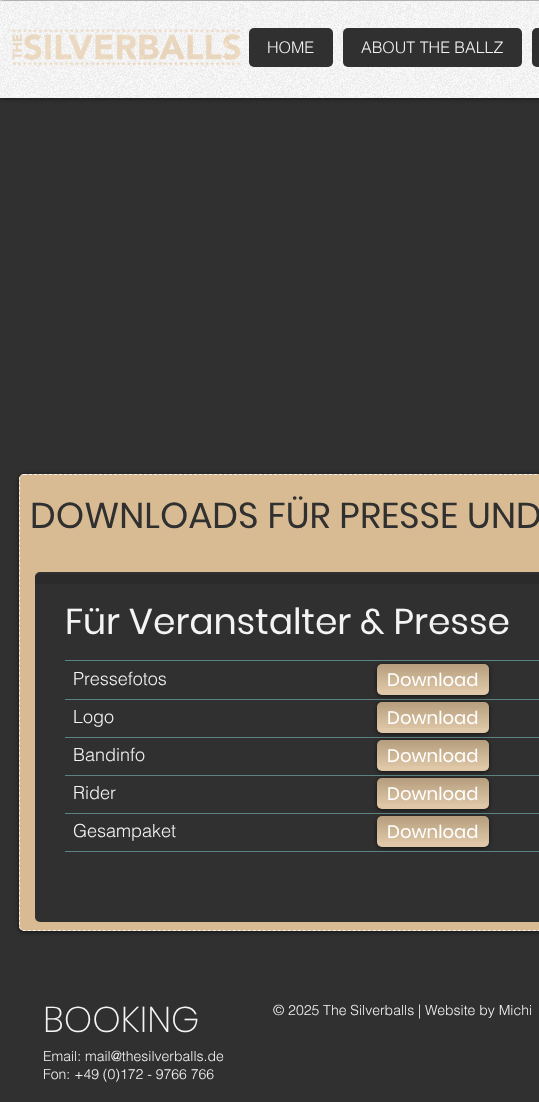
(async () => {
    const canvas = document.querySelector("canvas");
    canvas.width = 539;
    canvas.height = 1102;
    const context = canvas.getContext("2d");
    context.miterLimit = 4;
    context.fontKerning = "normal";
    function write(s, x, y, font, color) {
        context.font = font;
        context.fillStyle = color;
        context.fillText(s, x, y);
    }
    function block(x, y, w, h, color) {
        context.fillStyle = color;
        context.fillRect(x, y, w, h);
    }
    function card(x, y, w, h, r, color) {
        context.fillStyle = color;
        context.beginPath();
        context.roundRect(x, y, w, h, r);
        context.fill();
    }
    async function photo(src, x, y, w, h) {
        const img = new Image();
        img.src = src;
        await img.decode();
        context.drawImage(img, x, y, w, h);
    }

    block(0, 0, 539, 1102, "rgb(48, 48, 48)");
    block(0, 0, 539, 98, "rgb(250, 250, 250)");
    context.save();
    context.beginPath();
    context.moveTo(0, 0);
    context.lineTo(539, 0);
    context.lineTo(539, 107);
    context.lineTo(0, 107);
    context.closePath();
    context.moveTo(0, 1);
    context.lineTo(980, 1);
    context.lineTo(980, 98);
    context.lineTo(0, 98);
    context.closePath();
    context.clip("evenodd");
    context.fillStyle = "rgba(0, 0, 0, 0.7)";
    context.filter = "blur(2.5px)";
    context.beginPath();
    context.rect(0, 1, 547, 97);
    context.fill();
    context.filter = "none";
    context.restore();
    await photo("media/1.png", 0, 1, 539, 97);
    await photo("media/2.png", 12, 29, 229, 37);
    card(249, 28, 84, 39, 5, "rgb(48, 48, 48)");
    write("HOME", 267, 53, "300 16px helvetica", "rgb(244, 244, 244)");
    card(343, 28, 179, 39, 5, "rgb(48, 48, 48)");
    write("ABOUT THE BALLZ", 361, 53, "300 16px helvetica", "rgb(244, 244, 244)");
    card(532, 28, 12, 39, 5, "rgb(48, 48, 48)");
    context.fillStyle = "rgba(0, 0, 0, 0.6)";
    context.filter = "blur(2px)";
    context.beginPath();
    context.roundRect(19, 475, 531, 457, 5);
    context.fill();
    context.filter = "none";
    card(19, 474, 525, 457, 5, "rgb(216, 187, 147)");
    context.beginPath();
    context.moveTo(24, 474.5);
    context.lineTo(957, 474.5);
    context.bezierCurveTo(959.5, 474.5, 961.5, 476.5, 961.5, 479);
    context.lineTo(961.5, 926);
    context.bezierCurveTo(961.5, 928.5, 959.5, 930.5, 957, 930.5);
    context.lineTo(24, 930.5);
    context.bezierCurveTo(21.5, 930.5, 19.5, 928.5, 19.5, 926);
    context.lineTo(19.5, 479);
    context.bezierCurveTo(19.5, 476.5, 21.5, 474.5, 24, 474.5);
    context.closePath();
    context.strokeStyle = "rgb(244, 244, 244)";
    context.setLineDash([3, 2]);
    context.stroke();
    write("DOWNLOADS FÜR PRESSE UND", 30, 528, "36px Poppins", "rgb(48, 48, 48)");
    card(35, 572, 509, 350, 5, "rgb(48, 48, 48)");
    block(35, 574, 504, 10, "rgba(0, 0, 0, 0.09)");
    write("Für Veranstalter & Presse", 65, 634, "36px Poppins", "rgb(244, 244, 244)");
    block(65, 660, 474, 1, "rgb(92, 131, 131)");
    write("Pressefotos", 73, 685, "300 18px helvetica", "rgb(244, 244, 244)");
    context.fillStyle = "rgba(0, 0, 0, 0.6)";
    context.filter = "blur(2px)";
    context.beginPath();
    context.roundRect(377, 665, 112, 31, 5);
    context.fill();
    context.filter = "none";
    card(377, 664, 112, 31, 5, "rgb(216, 187, 147)");
    await photo("media/3.png", 377, 664, 112, 26);
    await photo("media/4.png", 377, 664, 112, 31);
    write("Download", 387, 686, "18px Poppins", "rgb(255, 255, 255)");
    block(65, 699, 474, 1, "rgb(92, 131, 130)");
    write("Logo", 73, 723, "300 18px helvetica", "rgb(244, 244, 244)");
    context.fillStyle = "rgba(0, 0, 0, 0.6)";
    context.filter = "blur(2px)";
    context.beginPath();
    context.roundRect(377, 703, 112, 31, 5);
    context.fill();
    context.filter = "none";
    card(377, 702, 112, 31, 5, "rgb(216, 187, 147)");
    await photo("media/3.png", 377, 702, 112, 26);
    await photo("media/5.png", 377, 702, 112, 31);
    write("Download", 387, 724, "18px Poppins", "rgb(255, 255, 255)");
    block(65, 737, 474, 1, "rgb(92, 131, 130)");
    write("Bandinfo", 73, 761, "300 18px helvetica", "rgb(244, 244, 244)");
    context.fillStyle = "rgba(0, 0, 0, 0.6)";
    context.filter = "blur(2px)";
    context.beginPath();
    context.roundRect(377, 741, 112, 31, 5);
    context.fill();
    context.filter = "none";
    card(377, 740, 112, 31, 5, "rgb(216, 187, 147)");
    await photo("media/3.png", 377, 740, 112, 26);
    await photo("media/6.png", 377, 740, 112, 31);
    write("Download", 387, 762, "18px Poppins", "rgb(255, 255, 255)");
    block(65, 775, 474, 1, "rgb(92, 131, 130)");
    write("Rider", 73, 799, "300 18px helvetica", "rgb(244, 244, 244)");
    context.fillStyle = "rgba(0, 0, 0, 0.6)";
    context.filter = "blur(2px)";
    context.beginPath();
    context.roundRect(377, 779, 112, 31, 5);
    context.fill();
    context.filter = "none";
    card(377, 778, 112, 31, 5, "rgb(216, 187, 147)");
    await photo("media/3.png", 377, 778, 112, 26);
    await photo("media/5.png", 377, 778, 112, 31);
    write("Download", 387, 800, "18px Poppins", "rgb(255, 255, 255)");
    context.fillStyle = "rgba(0, 0, 0, 0.6)";
    context.filter = "blur(2px)";
    context.beginPath();
    context.roundRect(377, 817, 112, 31, 5);
    context.fill();
    context.filter = "none";
    block(65, 813, 474, 1, "rgb(92, 131, 130)");
    write("Gesampaket", 73, 837, "300 18px helvetica", "rgb(244, 244, 244)");
    card(377, 816, 112, 31, 5, "rgb(216, 187, 147)");
    await photo("media/3.png", 377, 816, 112, 26);
    await photo("media/5.png", 377, 816, 112, 31);
    write("Download", 387, 838, "18px Poppins", "rgb(255, 255, 255)");
    block(65, 851, 474, 1, "rgb(92, 131, 130)");
    write("BOOKING", 43, 1032, "200 36px Poppins", "rgb(244, 244, 244)");
    write("Email: mail@thesilverballs.de", 43, 1061, "300 14px helvetica", "rgb(244, 244, 244)");
    write("Fon: +49 (0)172 - 9766 766", 43, 1079, "300 14px helvetica", "rgb(244, 244, 244)");
    write("© 2025 The Silverballs | Website by Michi", 273, 1015, "300 14px helvetica", "rgb(244, 244, 244)");
})();
